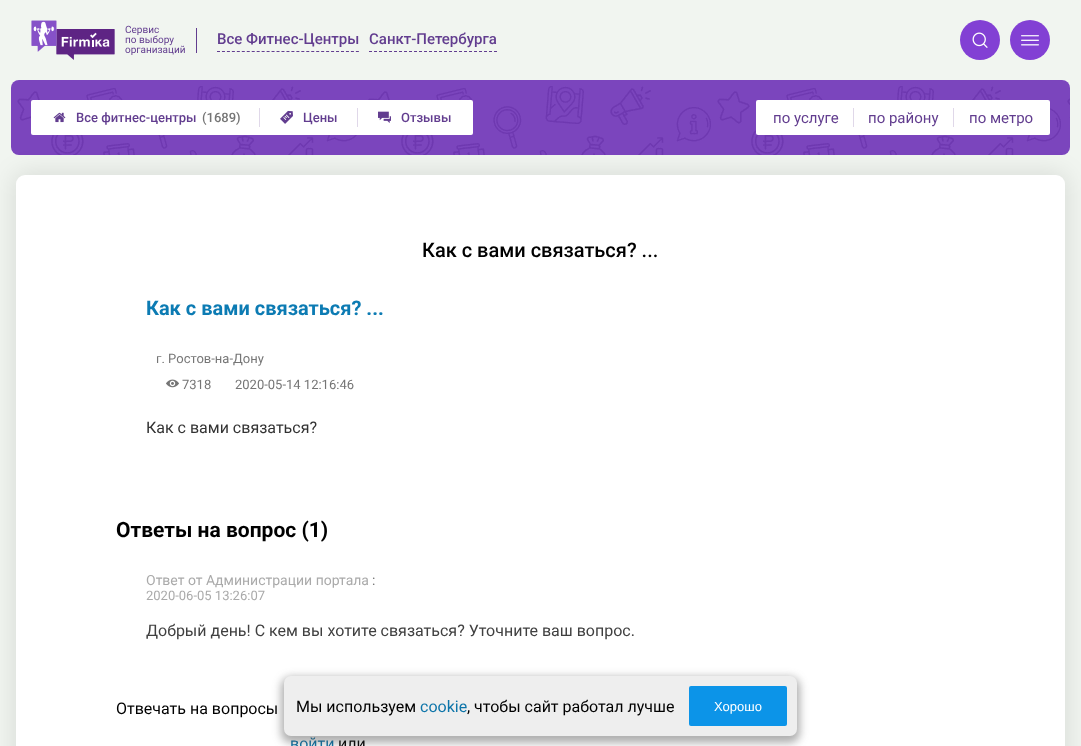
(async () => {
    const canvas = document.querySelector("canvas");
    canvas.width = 1081;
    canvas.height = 746;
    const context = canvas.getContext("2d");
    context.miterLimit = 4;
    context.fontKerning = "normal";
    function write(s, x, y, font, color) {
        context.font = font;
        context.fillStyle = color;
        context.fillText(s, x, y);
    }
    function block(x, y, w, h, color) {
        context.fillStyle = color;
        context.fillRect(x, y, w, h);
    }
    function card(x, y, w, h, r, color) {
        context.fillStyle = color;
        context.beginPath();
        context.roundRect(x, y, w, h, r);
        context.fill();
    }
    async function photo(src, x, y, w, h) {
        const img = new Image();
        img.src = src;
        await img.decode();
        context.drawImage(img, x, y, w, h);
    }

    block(0, 0, 1081, 746, "rgb(241, 245, 240)");
    await photo("media/1.png", 31, 20, 84, 40);
    write("Сервис", 125, 33, "10px Roboto", "rgb(98, 61, 143)");
    write("по выбору", 125, 43, "10px Roboto", "rgb(98, 61, 143)");
    write("организаций", 125, 53, "10px Roboto", "rgb(98, 61, 143)");
    block(196, 28, 1, 25, "rgb(98, 61, 143)");
    context.beginPath();
    context.moveTo(217, 51.5);
    context.lineTo(359, 51.5);
    context.strokeStyle = "rgb(98, 61, 143)";
    context.setLineDash([3, 1.96]);
    context.stroke();
    write("Все Фитнес-Центры", 217, 44, "500 15px Roboto", "rgb(98, 61, 143)");
    context.beginPath();
    context.moveTo(369, 51.5);
    context.lineTo(497, 51.5);
    context.setLineDash([3, 2]);
    context.stroke();
    write("Санкт-Петербурга", 369, 44, "500 15px Roboto", "rgb(98, 61, 143)");
    context.fillStyle = "rgb(130, 64, 212)";
    context.beginPath();
    context.arc(980, 40, 20, 0, Math.PI * 2);
    context.fill();
    await photo("media/2.png", 972, 32, 16, 16);
    context.beginPath();
    context.arc(1030, 40, 20, 0, Math.PI * 2);
    context.fill();
    await photo("media/3.png", 1021, 35, 18, 11);
    card(11, 80, 1059, 75, 8, "rgb(116, 59, 186)");
    await photo("media/4.png", 11, 80, 1059, 75);
    card(31, 100, 442, 35, 2, "rgb(255, 255, 255)");
    await photo("media/5.png", 53, 112, 13, 11);
    write("Все фитнес-центры", 76, 122, "500 13px Roboto", "rgb(98, 61, 143)");
    write("(1689)", 202, 122, "500 13px Roboto", "rgb(117, 117, 117)");
    block(259, 108, 1, 19, "rgb(224, 216, 233)");
    await photo("media/6.png", 280, 110, 13, 14);
    write("Цены", 303, 122, "500 13px Roboto", "rgb(98, 61, 143)");
    block(357, 108, 1, 19, "rgb(224, 216, 233)");
    await photo("media/7.png", 378, 111, 13, 12);
    write("Отзывы", 401, 122, "500 13px Roboto", "rgb(98, 61, 143)");
    card(756, 100, 294, 35, 2, "rgb(255, 255, 255)");
    write("по услуге", 773, 123, "15px Roboto", "rgb(98, 61, 143)");
    block(853, 108, 1, 19, "rgb(224, 216, 233)");
    write("по району", 868, 123, "15px Roboto", "rgb(98, 61, 143)");
    block(953, 108, 1, 19, "rgb(224, 216, 233)");
    write("по метро", 969, 123, "15px Roboto", "rgb(98, 61, 143)");
    context.fillStyle = "rgba(0, 0, 0, 0.1)";
    context.filter = "blur(12px)";
    context.beginPath();
    context.roundRect(14, 173, 1053, 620, 11);
    context.fill();
    context.filter = "none";
    card(16, 175, 1049, 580, 9, "rgb(255, 255, 255)");
    write("Как с вами связаться? ...", 422, 257, "500 20px Roboto", "rgb(0, 0, 0)");
    write("Как с вами связаться? ...", 146, 315, "bold 20px Roboto", "rgb(12, 123, 179)");
    write("г. Ростов-на-Дону", 156, 363, "13px Roboto", "rgb(117, 117, 117)");
    await photo("media/8.png", 166, 379, 13, 9);
    write("7318", 182, 389, "13px Roboto", "rgb(117, 117, 117)");
    write("2020-05-14 12:16:46", 235, 389, "13px Roboto", "rgb(117, 117, 117)");
    write("Как с вами связаться?", 146, 433, "16px Roboto", "rgb(51, 51, 51)");
    write("Ответы на вопрос (1)", 116, 537, "bold 21px Roboto", "rgb(0, 0, 0)");
    write("Ответ от Администрации портала", 146, 585, "14px Roboto", "rgb(170, 170, 170)");
    write(":", 372, 585, "14px Roboto", "rgb(117, 117, 117)");
    write("2020-06-05 13:26:07", 146, 600, "13px Roboto", "rgb(170, 170, 170)");
    write("Добрый день! С кем вы хотите связаться? Уточните ваш вопрос.", 146, 636, "16px Roboto", "rgb(64, 64, 64)");
    write("Отвечать на вопросы", 116, 714, "16px Roboto", "rgb(0, 0, 0)");
    write("войти", 290, 749, "16px Roboto", "rgb(12, 116, 169)");
    write("или", 338, 749, "16px Roboto", "rgb(0, 0, 0)");
    context.fillStyle = "rgba(64, 64, 64, 0.42)";
    context.filter = "blur(4px)";
    context.beginPath();
    context.roundRect(281, 677, 519, 66, 10);
    context.fill();
    context.filter = "none";
    card(284, 676, 513, 60, 7, "rgb(238, 238, 238)");
    write("Мы используем", 296, 712, "16px Roboto", "rgb(0, 0, 0)");
    write("cookie", 420, 712, "16px Roboto", "rgb(12, 116, 169)");
    write(", чтобы сайт работал лучше", 467, 712, "16px Roboto", "rgb(0, 0, 0)");
    card(689, 686, 98, 40, 2, "rgb(12, 148, 232)");
    write("Хорошо", 714, 711, "13px Liberation Sans", "rgb(255, 255, 255)");
})();
